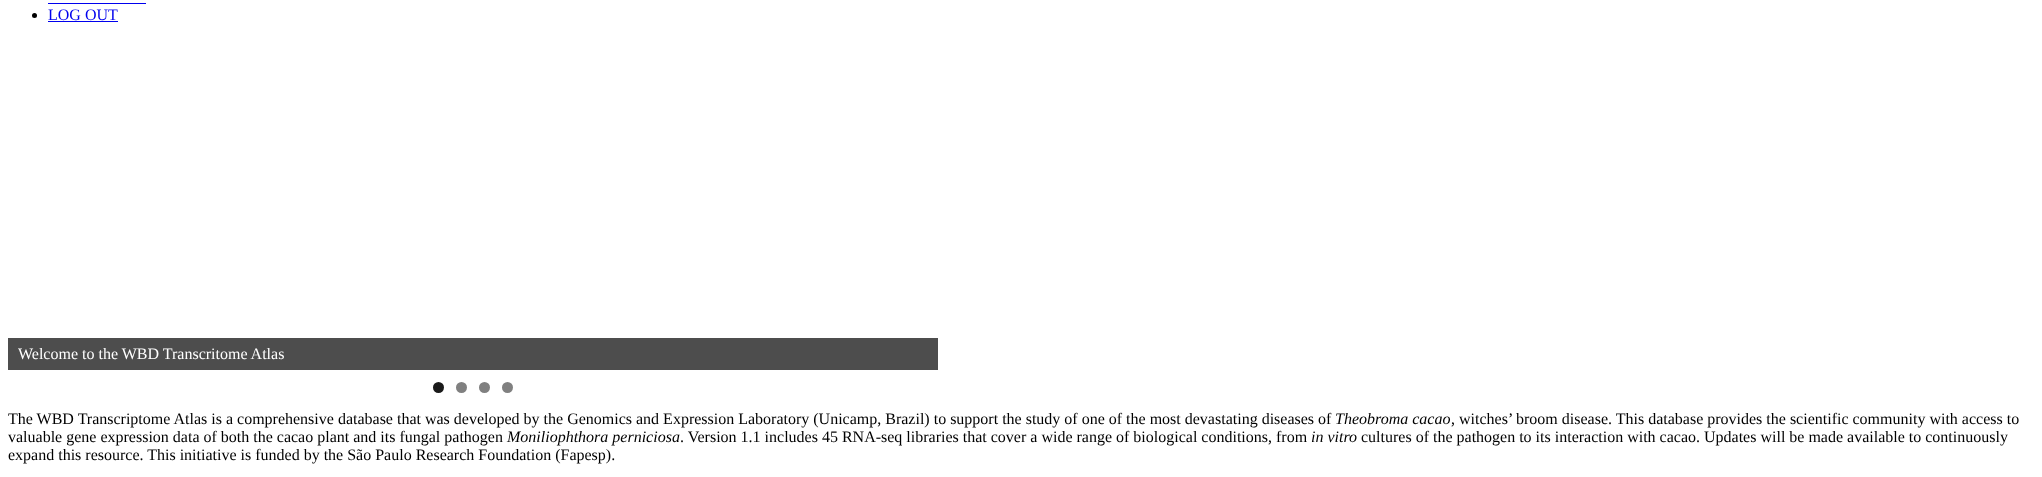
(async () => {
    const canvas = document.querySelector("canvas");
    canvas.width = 2042;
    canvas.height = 477;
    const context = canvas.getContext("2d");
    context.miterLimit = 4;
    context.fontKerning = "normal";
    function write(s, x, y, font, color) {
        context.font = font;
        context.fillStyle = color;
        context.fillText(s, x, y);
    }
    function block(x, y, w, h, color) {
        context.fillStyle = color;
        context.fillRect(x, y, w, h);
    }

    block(0, 0, 2042, 477, "rgb(255, 255, 255)");
    block(48, 3, 98, 1, "rgb(0, 0, 238)");
    context.fillStyle = "rgb(0, 0, 0)";
    context.beginPath();
    context.arc(34.5, 15.5, 2.5, 0, Math.PI * 2);
    context.fill();
    write("LOG OUT", 48, 20, "16px Liberation Serif", "rgb(0, 0, 238)");
    block(48, 21, 70, 1, "rgb(0, 0, 238)");
    block(8, 338, 930, 32, "rgb(77, 77, 77)");
    write("Welcome to the WBD Transcritome Atlas", 18, 359, "16px Liberation Serif", "rgb(255, 255, 255)");
    context.fillStyle = "rgb(26, 26, 26)";
    context.beginPath();
    context.arc(438.5, 387.5, 5.5, 0, Math.PI * 2);
    context.fill();
    context.fillStyle = "rgb(128, 128, 128)";
    context.beginPath();
    context.arc(461.5, 387.5, 5.5, 0, Math.PI * 2);
    context.fill();
    context.beginPath();
    context.arc(484.5, 387.5, 5.5, 0, Math.PI * 2);
    context.fill();
    context.beginPath();
    context.arc(507.5, 387.5, 5.5, 0, Math.PI * 2);
    context.fill();
    write("The WBD Transcriptome Atlas is a comprehensive database that was developed by the Genomics and Expression Laboratory (Unicamp, Brazil) to support the study of one of the most devastating diseases of", 8, 424, "16px Liberation Serif", "rgb(0, 0, 0)");
    write("Theobroma cacao", 1335, 424, "italic 16px Liberation Serif", "rgb(0, 0, 0)");
    write(", witches’ broom disease. This database provides the scientific community with access to", 1451, 424, "16px Liberation Serif", "rgb(0, 0, 0)");
    write("valuable gene expression data of both the cacao plant and its fungal pathogen", 8, 442, "16px Liberation Serif", "rgb(0, 0, 0)");
    write("Moniliophthora perniciosa", 507, 442, "italic 16px Liberation Serif", "rgb(0, 0, 0)");
    write(". Version 1.1 includes 45 RNA-seq libraries that cover a wide range of biological conditions, from", 680, 442, "16px Liberation Serif", "rgb(0, 0, 0)");
    write("in vitro", 1311, 442, "italic 16px Liberation Serif", "rgb(0, 0, 0)");
    write("cultures of the pathogen to its interaction with cacao. Updates will be made available to continuously", 1361, 442, "16px Liberation Serif", "rgb(0, 0, 0)");
    write("expand this resource. This initiative is funded by the São Paulo Research Foundation (Fapesp).", 8, 460, "16px Liberation Serif", "rgb(0, 0, 0)");
})();
